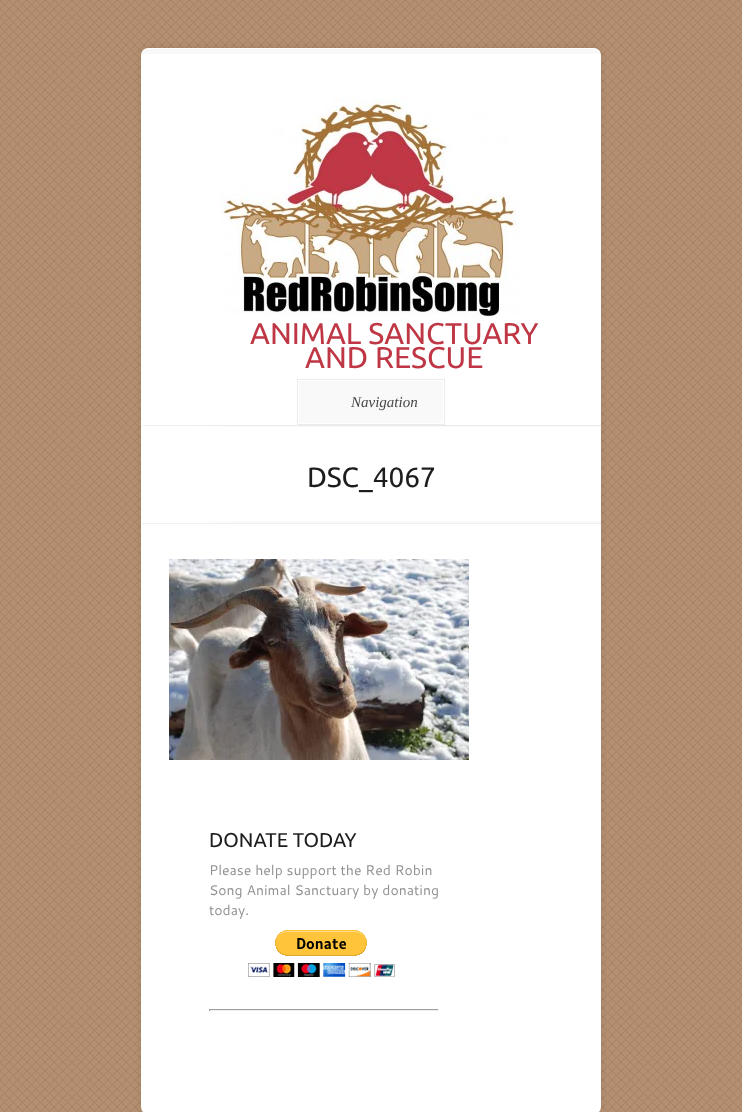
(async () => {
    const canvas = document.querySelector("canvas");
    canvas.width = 742;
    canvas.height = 1112;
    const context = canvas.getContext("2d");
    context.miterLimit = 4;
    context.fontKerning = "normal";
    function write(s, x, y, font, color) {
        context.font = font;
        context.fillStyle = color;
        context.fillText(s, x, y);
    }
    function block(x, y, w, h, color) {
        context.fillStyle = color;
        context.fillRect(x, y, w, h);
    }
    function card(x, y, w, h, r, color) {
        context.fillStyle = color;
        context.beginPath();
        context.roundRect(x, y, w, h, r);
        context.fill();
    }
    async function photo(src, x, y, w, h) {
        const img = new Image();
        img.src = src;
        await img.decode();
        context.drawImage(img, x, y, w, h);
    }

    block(0, 0, 742, 1112, "rgb(181, 143, 112)");
    await photo("media/1.png", 0, 0, 742, 1112);
    context.fillStyle = "rgba(0, 0, 0, 0.1)";
    context.filter = "blur(3px)";
    context.beginPath();
    context.roundRect(141, 48, 460, 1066, 7);
    context.fill();
    context.filter = "none";
    card(141, 48, 460, 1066, 7, "rgb(255, 255, 255)");
    await photo("media/2.png", 142, 49, 458, 5);
    await photo("media/3.png", 221, 98, 300, 223);
    write("ANIMAL SANCTUARY", 250, 344, "30px Ubuntu", "rgb(191, 55, 69)");
    write("AND RESCUE", 305, 368, "30px Ubuntu", "rgb(191, 55, 69)");
    block(299, 381, 144, 42, "rgb(249, 249, 249)");
    context.strokeStyle = "rgb(236, 236, 236)";
    context.strokeRect(297.5, 379.5, 147, 45);
    write("Navigation", 351, 407, "italic 15px Liberation Serif", "rgb(70, 70, 70)");
    await photo("media/4.png", 142, 425, 459, 2);
    await photo("media/5.png", 142, 521, 459, 3);
    write("DSC_4067", 307, 487, "28px Ubuntu", "rgb(29, 29, 29)");
    await photo("media/6.png", 169, 559, 300, 201);
    write("DONATE TODAY", 209, 847, "20px Ubuntu", "rgb(29, 29, 29)");
    write("Please help support the Red Robin", 209, 875, "14px Cantarell", "rgb(146, 146, 146)");
    write("Song Animal Sanctuary by donating", 209, 895, "14px Cantarell", "rgb(146, 146, 146)");
    write("today.", 209, 915, "14px Cantarell", "rgb(146, 146, 146)");
    await photo("media/7.png", 248, 930, 147, 47);
    block(209, 1009, 230, 1, "rgb(159, 159, 159)");
    block(438, 1009, 1, 2, "rgb(238, 238, 238)");
    block(209, 1010, 230, 1, "rgb(238, 238, 238)");
    block(209, 1009, 1, 2, "rgb(159, 159, 159)");
})();
